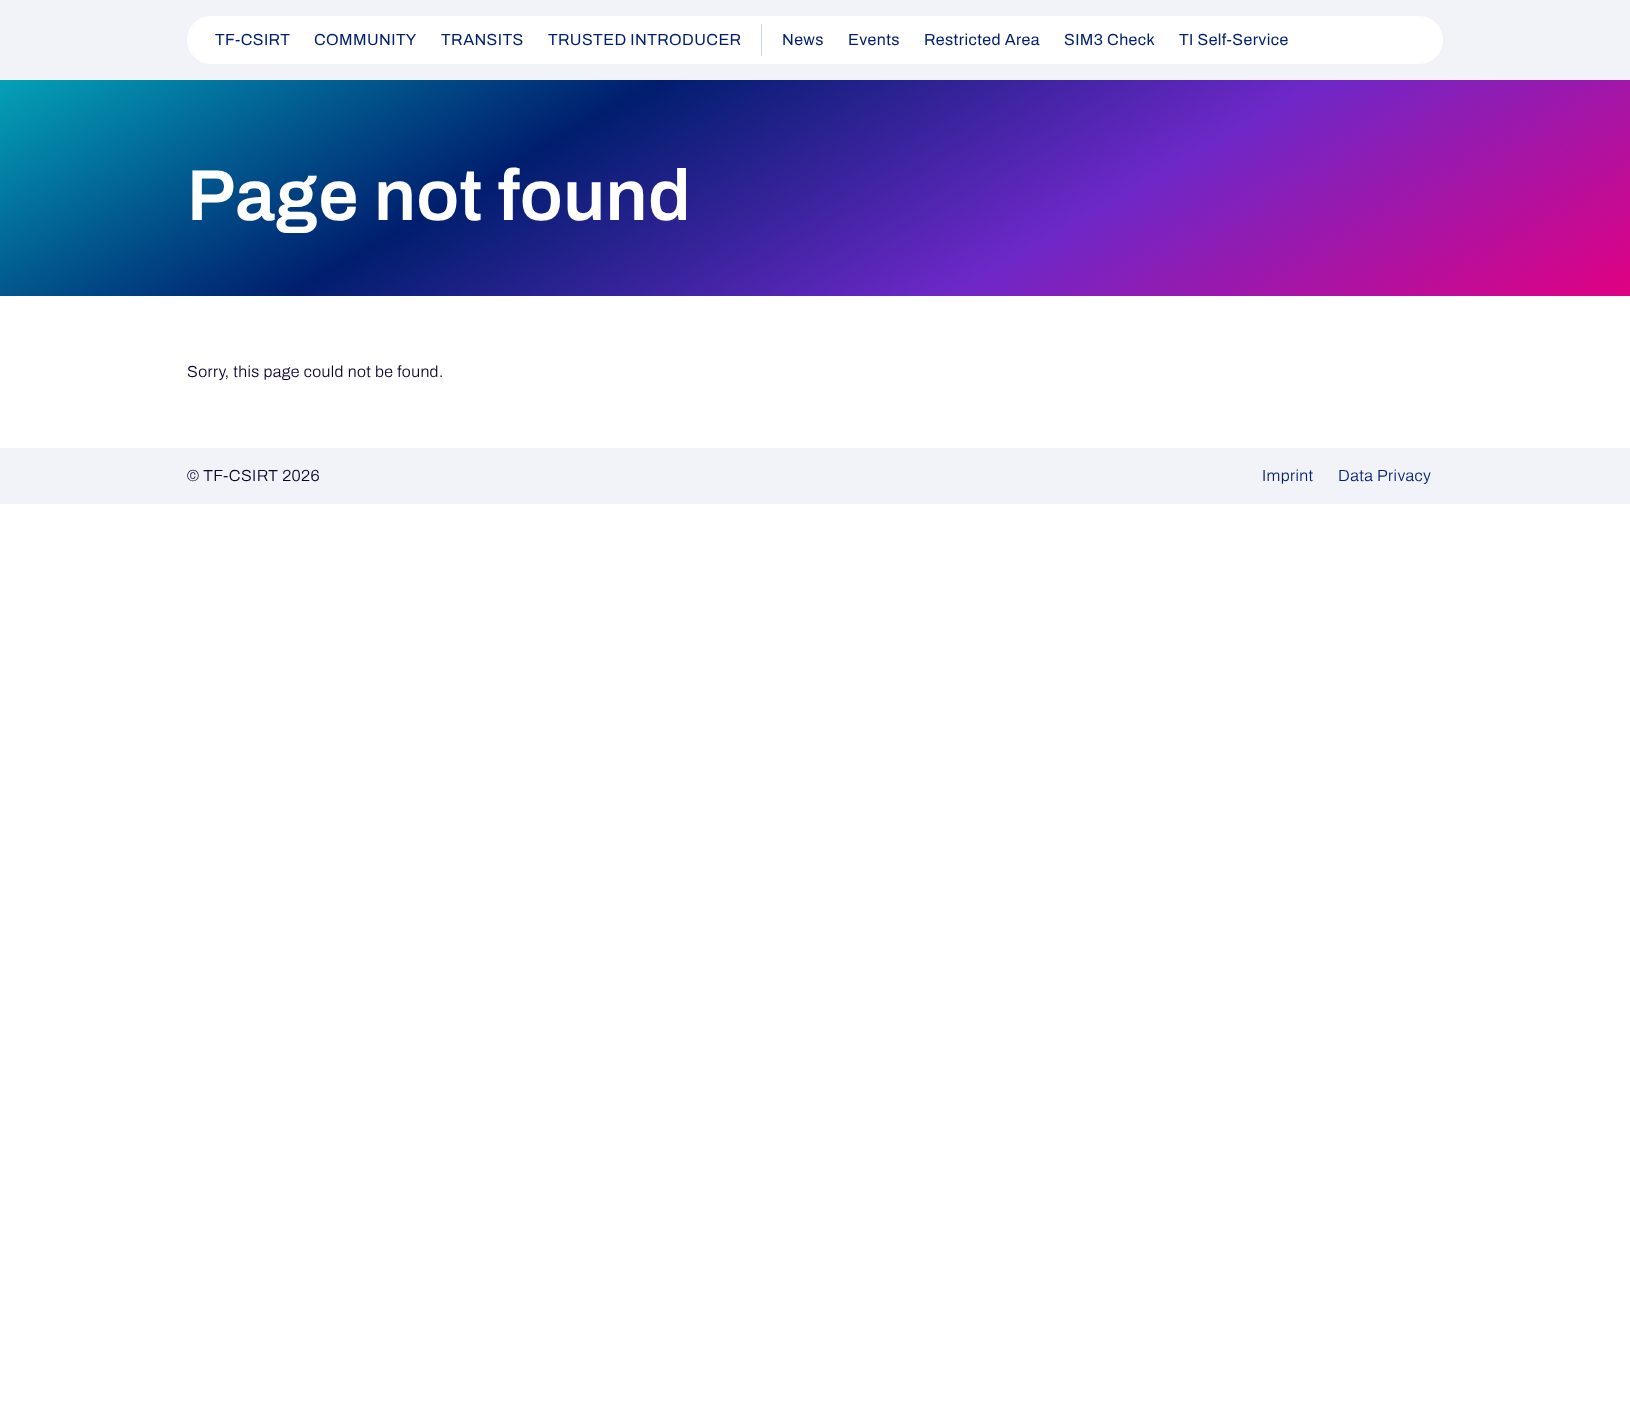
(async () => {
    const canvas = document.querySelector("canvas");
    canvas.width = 1630;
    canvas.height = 1406;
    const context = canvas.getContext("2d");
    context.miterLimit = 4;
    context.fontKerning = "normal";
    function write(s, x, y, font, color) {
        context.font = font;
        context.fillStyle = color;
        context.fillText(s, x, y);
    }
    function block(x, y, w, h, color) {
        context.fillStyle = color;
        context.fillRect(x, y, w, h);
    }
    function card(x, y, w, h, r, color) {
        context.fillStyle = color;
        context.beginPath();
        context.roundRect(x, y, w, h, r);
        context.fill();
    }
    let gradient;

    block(0, 0, 1630, 1406, "rgb(255, 255, 255)");
    block(0, 0, 1630, 80, "rgb(242, 243, 248)");
    card(187, 16, 1256, 48, 24, "rgb(255, 255, 255)");
    context.letterSpacing = "0.4px";
    write("TF-CSIRT", 215, 45, "600 16px 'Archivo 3'", "rgb(0, 30, 110)");
    write("COMMUNITY", 314, 45, "600 16px 'Archivo 3'", "rgb(0, 30, 110)");
    write("TRANSITS", 441, 45, "600 16px 'Archivo 3'", "rgb(0, 30, 110)");
    write("TRUSTED INTRODUCER", 548, 45, "600 16px 'Archivo 3'", "rgb(0, 30, 110)");
    block(761, 24, 1, 32, "rgb(202, 214, 232)");
    write("News", 782, 45, "600 16px 'Archivo 3'", "rgb(0, 30, 110)");
    write("Events", 848, 45, "600 16px 'Archivo 3'", "rgb(0, 30, 110)");
    write("Restricted Area", 924, 45, "600 16px 'Archivo 3'", "rgb(0, 30, 110)");
    write("SIM3 Check", 1064, 45, "600 16px 'Archivo 3'", "rgb(0, 30, 110)");
    write("TI Self-Service", 1179, 45, "600 16px 'Archivo 3'", "rgb(0, 30, 110)");
    gradient = context.createLinearGradient(564, -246, 1066, 622);
    gradient.addColorStop(0, "rgb(4, 161, 183)");
    gradient.addColorStop(0.33, "rgb(0, 30, 110)");
    gradient.addColorStop(0.66, "rgb(110, 40, 200)");
    gradient.addColorStop(1, "rgb(225, 0, 130)");
    context.fillStyle = gradient;
    context.fillRect(0, 80, 1630, 216);
    write("Page not found", 187, 220, "600 72px 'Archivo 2'", "rgb(255, 255, 255)");
    write("Sorry, this page could not be found.", 187, 377, "600 16px Archivo", "rgb(12, 2, 43)");
    block(0, 448, 1630, 56, "rgb(242, 243, 248)");
    write("© TF-CSIRT 2026", 187, 481, "600 16px Archivo", "rgb(12, 2, 43)");
    write("Imprint", 1262, 481, "600 16px Archivo", "rgb(0, 30, 110)");
    write("Data Privacy", 1338, 481, "600 16px Archivo", "rgb(0, 30, 110)");
})();
